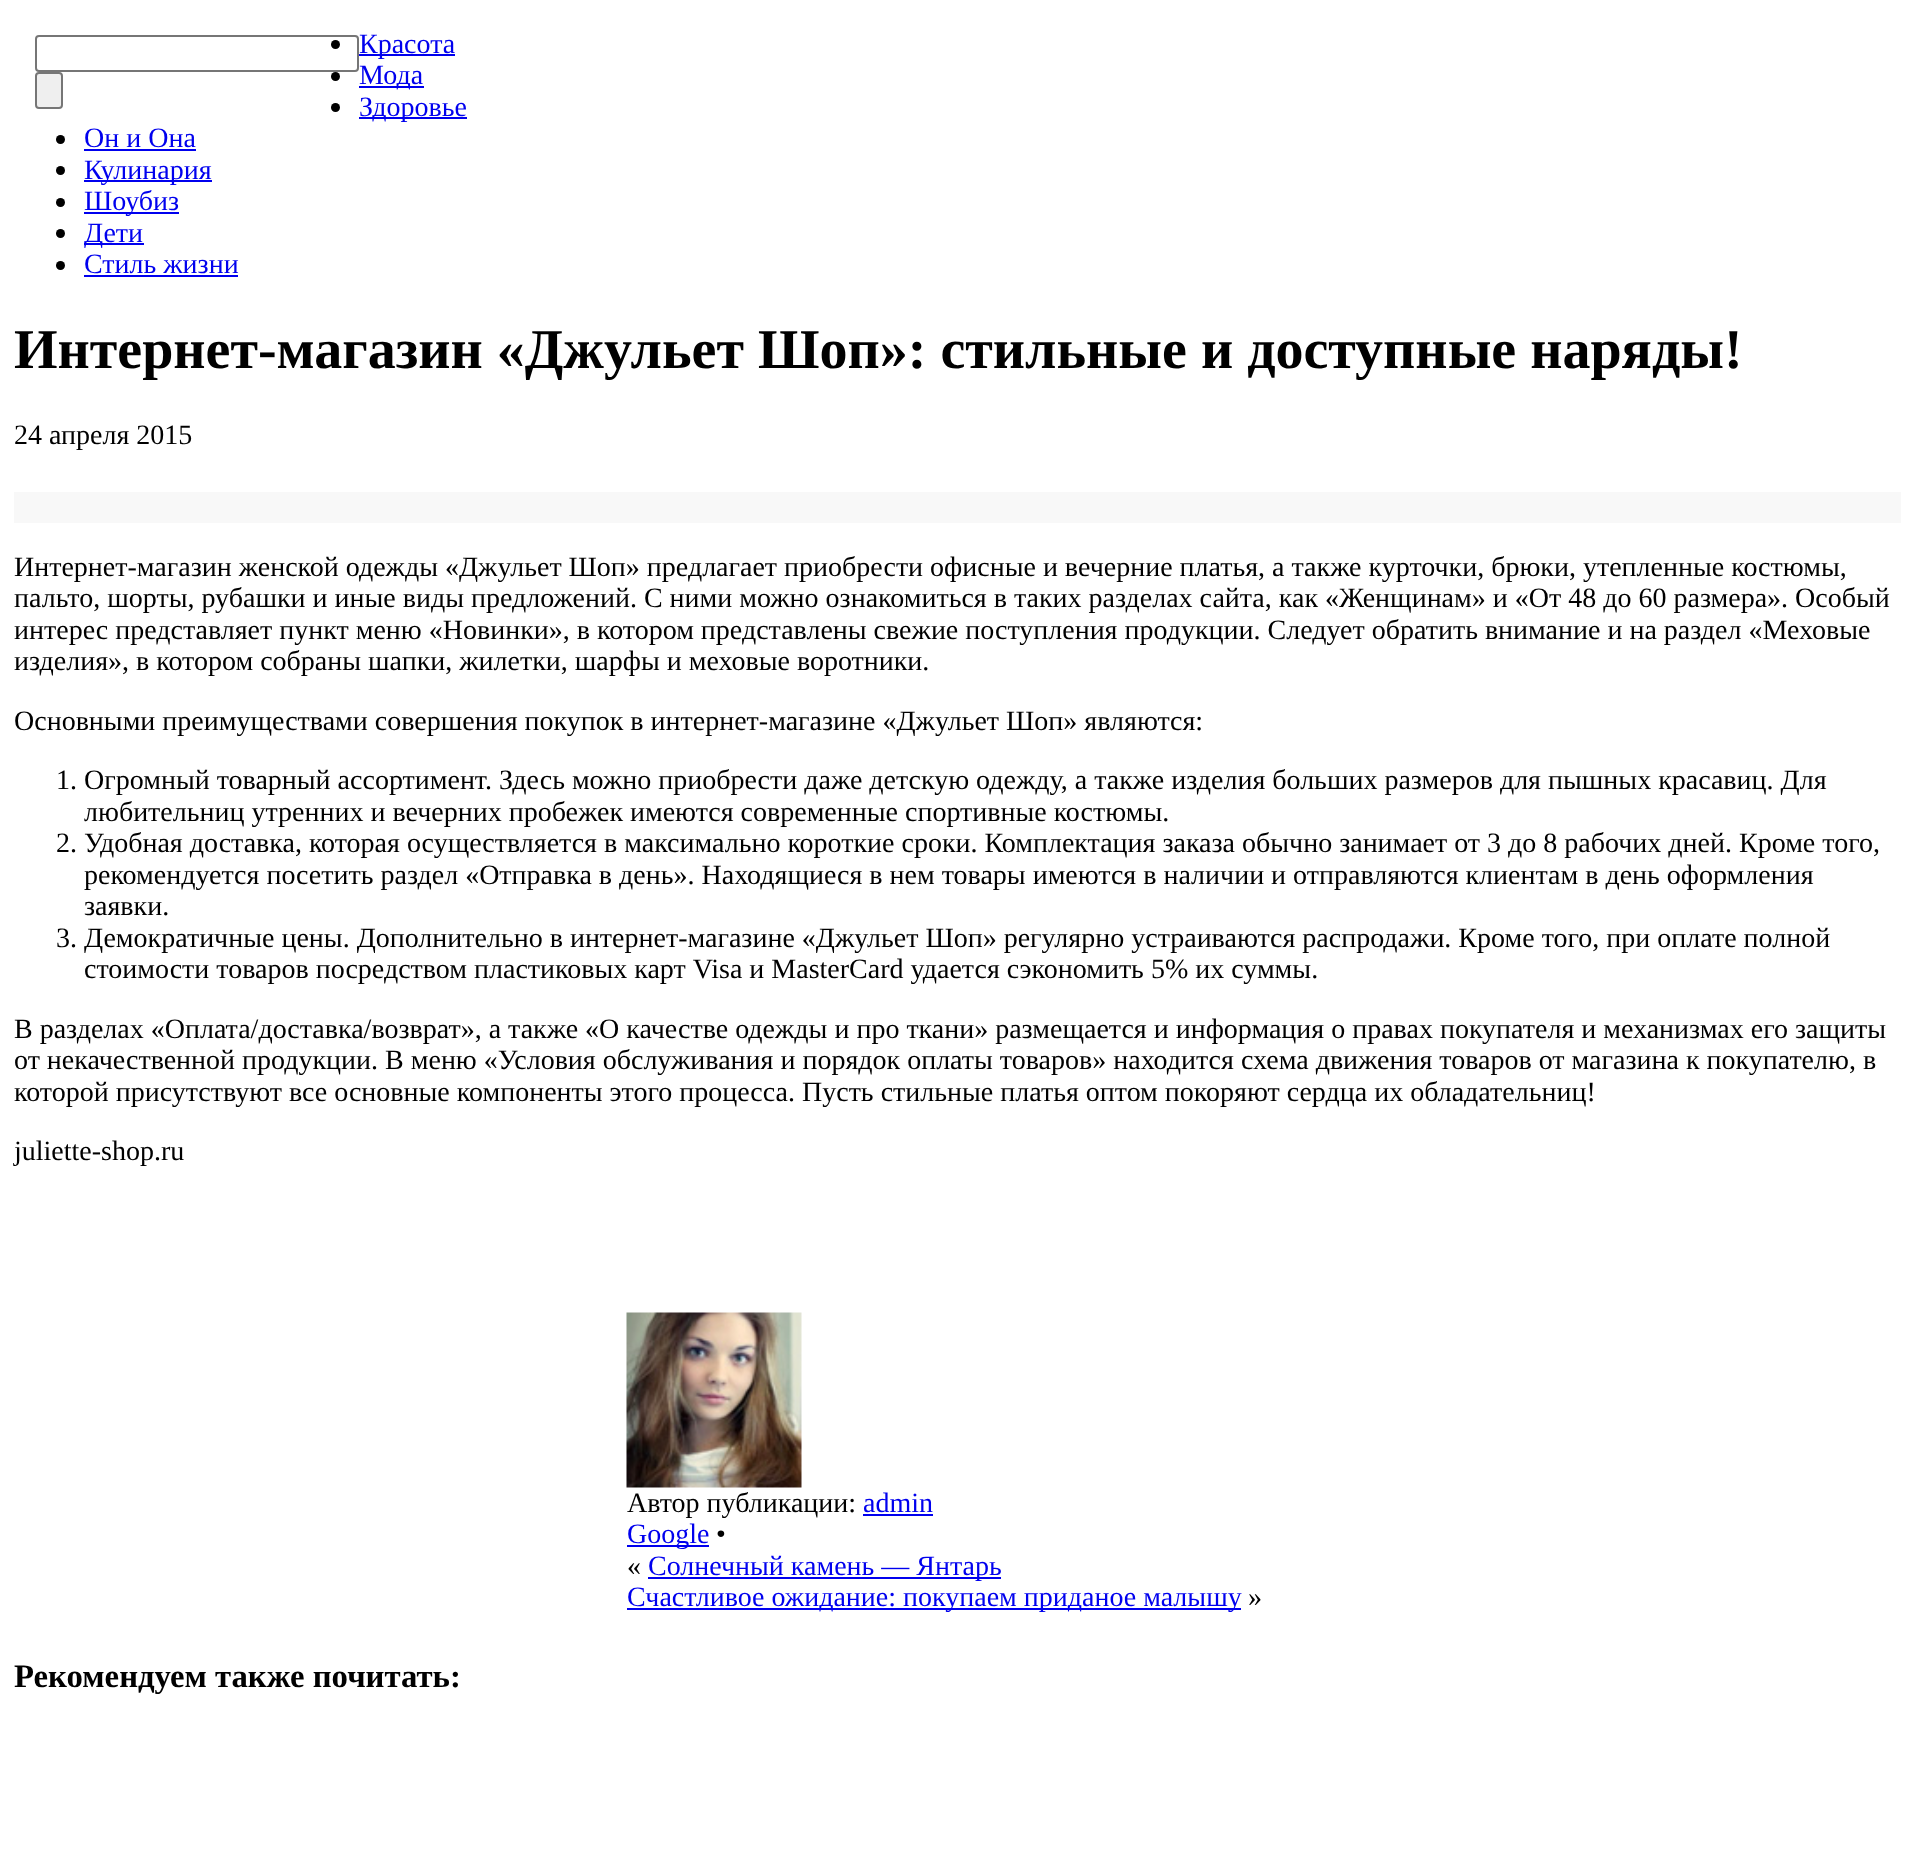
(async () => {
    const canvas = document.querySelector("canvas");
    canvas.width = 1913;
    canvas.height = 1851;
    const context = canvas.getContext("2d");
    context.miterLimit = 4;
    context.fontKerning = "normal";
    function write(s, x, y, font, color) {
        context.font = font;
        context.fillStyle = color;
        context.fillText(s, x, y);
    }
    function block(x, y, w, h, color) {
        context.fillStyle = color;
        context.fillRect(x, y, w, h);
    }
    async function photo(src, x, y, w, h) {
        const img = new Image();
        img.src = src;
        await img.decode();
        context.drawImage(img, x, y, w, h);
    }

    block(0, 0, 1913, 1851, "rgb(255, 255, 255)");
    context.beginPath();
    context.roundRect(36, 36, 322, 35, 3);
    context.strokeStyle = "rgb(118, 118, 118)";
    context.lineWidth = 2;
    context.stroke();
    context.fillStyle = "rgb(0, 0, 0)";
    context.beginPath();
    context.arc(335.5, 44.5, 4.5, 0, Math.PI * 2);
    context.fill();
    block(359, 54, 96, 2, "rgb(0, 0, 238)");
    write("Красота", 359, 53, "28px Liberation Serif", "rgb(0, 0, 238)");
    context.fillStyle = "rgb(0, 0, 0)";
    context.beginPath();
    context.arc(335.5, 76.5, 4.5, 0, Math.PI * 2);
    context.fill();
    block(359, 86, 65, 2, "rgb(0, 0, 238)");
    write("Мода", 359, 84, "28px Liberation Serif", "rgb(0, 0, 238)");
    context.fillStyle = "rgb(0, 0, 0)";
    context.beginPath();
    context.arc(335.5, 107.5, 4.5, 0, Math.PI * 2);
    context.fill();
    block(359, 117, 108, 2, "rgb(0, 0, 238)");
    write("Здоровье", 359, 116, "28px Liberation Serif", "rgb(0, 0, 238)");
    context.fillStyle = "rgb(0, 0, 0)";
    context.beginPath();
    context.arc(60.5, 139.5, 4.5, 0, Math.PI * 2);
    context.fill();
    write("Он и Она", 84, 147, "28px Liberation Serif", "rgb(0, 0, 238)");
    block(84, 149, 112, 2, "rgb(0, 0, 238)");
    context.fillStyle = "rgb(0, 0, 0)";
    context.beginPath();
    context.arc(60.5, 170.5, 4.5, 0, Math.PI * 2);
    context.fill();
    block(84, 180, 128, 2, "rgb(0, 0, 238)");
    write("Кулинария", 84, 179, "28px Liberation Serif", "rgb(0, 0, 238)");
    context.fillStyle = "rgb(0, 0, 0)";
    context.beginPath();
    context.arc(60.5, 202.5, 4.5, 0, Math.PI * 2);
    context.fill();
    block(84, 212, 95, 2, "rgb(0, 0, 238)");
    write("Шоубиз", 84, 210, "28px Liberation Serif", "rgb(0, 0, 238)");
    context.fillStyle = "rgb(0, 0, 0)";
    context.beginPath();
    context.arc(60.5, 233.5, 4.5, 0, Math.PI * 2);
    context.fill();
    block(84, 243, 60, 2, "rgb(0, 0, 238)");
    write("Дети", 84, 242, "28px Liberation Serif", "rgb(0, 0, 238)");
    context.fillStyle = "rgb(0, 0, 0)";
    context.beginPath();
    context.arc(60.5, 265.5, 4.5, 0, Math.PI * 2);
    context.fill();
    write("Стиль жизни", 84, 273, "28px Liberation Serif", "rgb(0, 0, 238)");
    block(84, 275, 154, 2, "rgb(0, 0, 238)");
    context.fillStyle = "rgb(239, 239, 239)";
    context.beginPath();
    context.roundRect(36, 73, 26, 35, 3);
    context.fill();
    context.stroke();
    write("Интернет-магазин «Джульет Шоп»: стильные и доступные наряды!", 14, 368, "bold 56px Liberation Serif", "rgb(0, 0, 0)");
    write("24 апреля 2015", 14, 444, "28px Liberation Serif", "rgb(0, 0, 0)");
    block(14, 492, 1887, 31, "rgb(248, 248, 248)");
    write("Интернет-магазин женской одежды «Джульет Шоп» предлагает приобрести офисные и вечерние платья, а также курточки, брюки, утепленные костюмы,", 14, 576, "28px Liberation Serif", "rgb(0, 0, 0)");
    write("пальто, шорты, рубашки и иные виды предложений. С ними можно ознакомиться в таких разделах сайта, как «Женщинам» и «От 48 до 60 размера». Особый", 14, 607, "28px Liberation Serif", "rgb(0, 0, 0)");
    write("интерес представляет пункт меню «Новинки», в котором представлены свежие поступления продукции. Следует обратить внимание и на раздел «Меховые", 14, 639, "28px Liberation Serif", "rgb(0, 0, 0)");
    write("изделия», в котором собраны шапки, жилетки, шарфы и меховые воротники.", 14, 670, "28px Liberation Serif", "rgb(0, 0, 0)");
    write("Основными преимуществами совершения покупок в интернет-магазине «Джульет Шоп» являются:", 14, 730, "28px Liberation Serif", "rgb(0, 0, 0)");
    write("1. Огромный товарный ассортимент. Здесь можно приобрести даже детскую одежду, а также изделия больших размеров для пышных красавиц. Для", 56, 789, "28px Liberation Serif", "rgb(0, 0, 0)");
    write("любительниц утренних и вечерних пробежек имеются современные спортивные костюмы.", 84, 821, "28px Liberation Serif", "rgb(0, 0, 0)");
    write("2. Удобная доставка, которая осуществляется в максимально короткие сроки. Комплектация заказа обычно занимает от 3 до 8 рабочих дней. Кроме того,", 56, 852, "28px Liberation Serif", "rgb(0, 0, 0)");
    write("рекомендуется посетить раздел «Отправка в день». Находящиеся в нем товары имеются в наличии и отправляются клиентам в день оформления", 84, 884, "28px Liberation Serif", "rgb(0, 0, 0)");
    write("заявки.", 84, 915, "28px Liberation Serif", "rgb(0, 0, 0)");
    write("3. Демократичные цены. Дополнительно в интернет-магазине «Джульет Шоп» регулярно устраиваются распродажи. Кроме того, при оплате полной", 56, 947, "28px Liberation Serif", "rgb(0, 0, 0)");
    write("стоимости товаров посредством пластиковых карт Visa и MasterCard удается сэкономить 5% их суммы.", 84, 978, "28px Liberation Serif", "rgb(0, 0, 0)");
    write("В разделах «Оплата/доставка/возврат», а также «О качестве одежды и про ткани» размещается и информация о правах покупателя и механизмах его защиты", 14, 1038, "28px Liberation Serif", "rgb(0, 0, 0)");
    write("от некачественной продукции. В меню «Условия обслуживания и порядок оплаты товаров» находится схема движения товаров от магазина к покупателю, в", 14, 1069, "28px Liberation Serif", "rgb(0, 0, 0)");
    write("которой присутствуют все основные компоненты этого процесса. Пусть стильные платья оптом покоряют сердца их обладательниц!", 14, 1101, "28px Liberation Serif", "rgb(0, 0, 0)");
    write("juliette-shop.ru", 14, 1160, "28px Liberation Serif", "rgb(0, 0, 0)");
    await photo("media/1.png", 626, 1312, 176, 176);
    write("Автор публикации:", 627, 1512, "28px Liberation Serif", "rgb(0, 0, 0)");
    write("admin", 863, 1512, "28px Liberation Serif", "rgb(0, 0, 238)");
    block(863, 1514, 70, 2, "rgb(0, 0, 238)");
    block(627, 1545, 82, 2, "rgb(0, 0, 238)");
    write("Google", 627, 1543, "28px Liberation Serif", "rgb(0, 0, 238)");
    write("•", 716, 1543, "28px Liberation Serif", "rgb(0, 0, 0)");
    write("«", 627, 1575, "28px Liberation Serif", "rgb(0, 0, 0)");
    block(648, 1577, 353, 2, "rgb(0, 0, 238)");
    write("Солнечный камень — Янтарь", 648, 1575, "28px Liberation Serif", "rgb(0, 0, 238)");
    block(627, 1608, 614, 2, "rgb(0, 0, 238)");
    write("Счастливое ожидание: покупаем приданое малышу", 627, 1606, "28px Liberation Serif", "rgb(0, 0, 238)");
    write("»", 1248, 1606, "28px Liberation Serif", "rgb(0, 0, 0)");
    write("Рекомендуем также почитать:", 14, 1687, "bold 32.75px Liberation Serif", "rgb(0, 0, 0)");
})();
